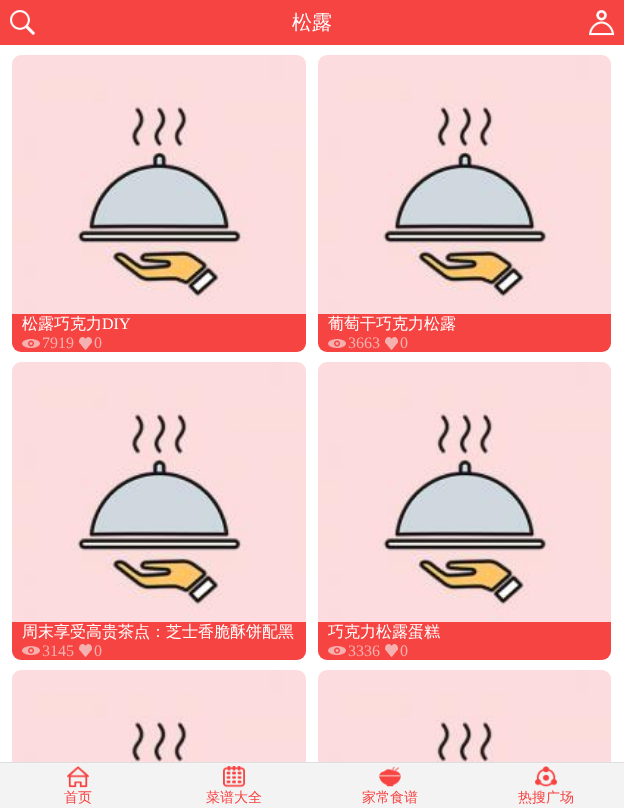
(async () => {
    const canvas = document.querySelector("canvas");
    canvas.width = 624;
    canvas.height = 808;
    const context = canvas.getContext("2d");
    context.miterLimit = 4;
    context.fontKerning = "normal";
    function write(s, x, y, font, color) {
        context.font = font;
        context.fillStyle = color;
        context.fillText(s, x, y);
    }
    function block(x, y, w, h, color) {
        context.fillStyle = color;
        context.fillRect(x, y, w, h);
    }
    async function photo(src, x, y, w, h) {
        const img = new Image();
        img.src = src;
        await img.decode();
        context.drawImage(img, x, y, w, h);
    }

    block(0, 0, 624, 808, "rgb(255, 255, 255)");
    block(0, 0, 624, 45, "rgb(246, 68, 66)");
    await photo("media/1.png", 10, 10, 26, 25);
    write("松露", 292, 29, "500 20px WenQuanYi Zen Hei", "rgb(255, 255, 255)");
    await photo("media/2.png", 589, 10, 26, 26);
    await photo("media/3.png", 12, 55, 294, 259);
    context.fillStyle = "rgb(246, 68, 66)";
    context.beginPath();
    context.roundRect(12, 314, 294, 38, [0, 0, 9, 9]);
    context.fill();
    write("松露巧克力", 22, 329, "500 16px WenQuanYi Zen Hei", "rgb(255, 255, 255)");
    write("DIY", 102, 329, "16px Liberation Serif", "rgb(255, 255, 255)");
    await photo("media/4.png", 22, 339, 18, 9);
    write("7919", 42, 348, "16px Liberation Serif", "rgb(245, 177, 176)");
    await photo("media/5.png", 79, 337, 13, 13);
    write("0", 94, 348, "16px Liberation Serif", "rgb(245, 177, 176)");
    await photo("media/6.png", 318, 55, 293, 259);
    context.fillStyle = "rgb(246, 68, 66)";
    context.beginPath();
    context.roundRect(318, 314, 293, 38, [0, 0, 9, 9]);
    context.fill();
    write("葡萄干巧克力松露", 328, 329, "500 16px WenQuanYi Zen Hei", "rgb(255, 255, 255)");
    await photo("media/7.png", 328, 339, 18, 9);
    write("3663", 348, 348, "16px Liberation Serif", "rgb(245, 177, 176)");
    await photo("media/5.png", 385, 337, 13, 13);
    write("0", 400, 348, "16px Liberation Serif", "rgb(245, 177, 176)");
    await photo("media/8.png", 12, 362, 294, 260);
    context.fillStyle = "rgb(246, 68, 66)";
    context.beginPath();
    context.roundRect(12, 622, 294, 38, [0, 0, 9, 9]);
    context.fill();
    write("周末享受高贵茶点：芝士香脆酥饼配黑", 22, 637, "500 16px WenQuanYi Zen Hei", "rgb(255, 255, 255)");
    await photo("media/4.png", 22, 646, 18, 9);
    write("3145", 42, 656, "16px Liberation Serif", "rgb(245, 177, 176)");
    await photo("media/5.png", 79, 644, 13, 13);
    write("0", 94, 656, "16px Liberation Serif", "rgb(245, 177, 176)");
    await photo("media/9.png", 318, 362, 293, 260);
    context.fillStyle = "rgb(246, 68, 66)";
    context.beginPath();
    context.roundRect(318, 622, 293, 38, [0, 0, 9, 9]);
    context.fill();
    write("巧克力松露蛋糕", 328, 637, "500 16px WenQuanYi Zen Hei", "rgb(255, 255, 255)");
    await photo("media/7.png", 328, 646, 18, 9);
    write("3336", 348, 656, "16px Liberation Serif", "rgb(245, 177, 176)");
    await photo("media/5.png", 385, 644, 13, 13);
    write("0", 400, 656, "16px Liberation Serif", "rgb(245, 177, 176)");
    await photo("media/10.png", 12, 670, 294, 92);
    await photo("media/11.png", 318, 670, 293, 92);
    block(0, 763, 624, 45, "rgb(243, 243, 243)");
    block(0, 762, 624, 1, "rgb(222, 222, 222)");
    await photo("media/12.png", 67, 766, 22, 22);
    write("首页", 64, 802, "500 14px WenQuanYi Zen Hei", "rgb(246, 68, 66)");
    await photo("media/13.png", 223, 766, 22, 22);
    write("菜谱大全", 206, 802, "500 14px WenQuanYi Zen Hei", "rgb(246, 68, 66)");
    await photo("media/14.png", 379, 766, 22, 21);
    write("家常食谱", 362, 802, "500 14px WenQuanYi Zen Hei", "rgb(246, 68, 66)");
    await photo("media/15.png", 535, 766, 22, 21);
    write("热搜广场", 518, 802, "500 14px WenQuanYi Zen Hei", "rgb(246, 68, 66)");
})();
